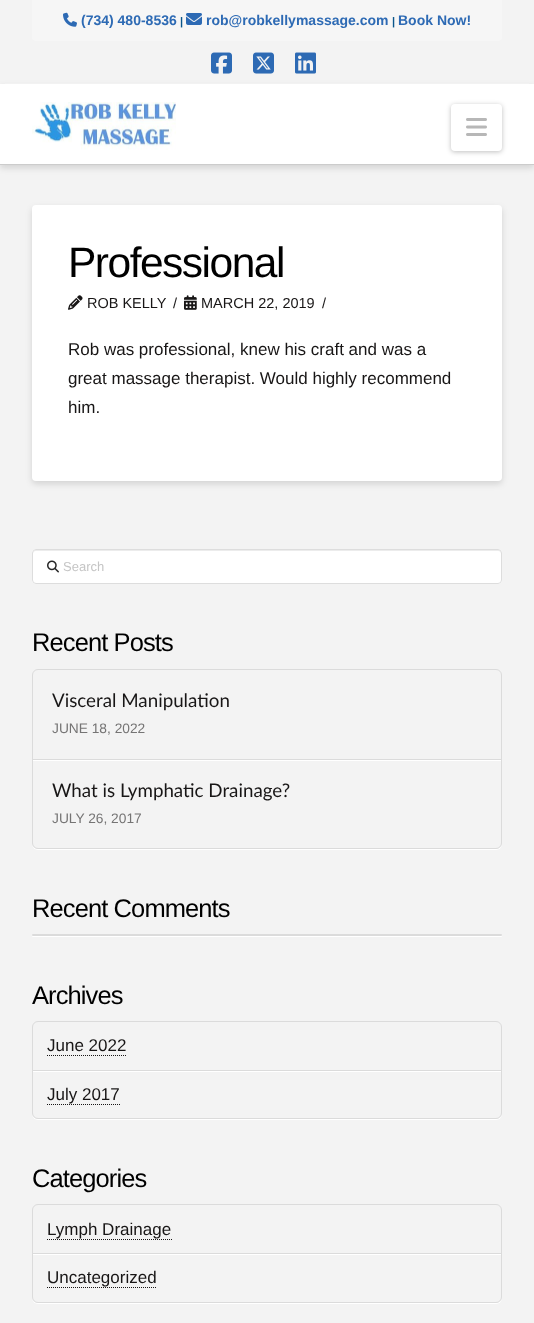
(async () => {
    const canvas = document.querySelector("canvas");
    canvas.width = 534;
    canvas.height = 1323;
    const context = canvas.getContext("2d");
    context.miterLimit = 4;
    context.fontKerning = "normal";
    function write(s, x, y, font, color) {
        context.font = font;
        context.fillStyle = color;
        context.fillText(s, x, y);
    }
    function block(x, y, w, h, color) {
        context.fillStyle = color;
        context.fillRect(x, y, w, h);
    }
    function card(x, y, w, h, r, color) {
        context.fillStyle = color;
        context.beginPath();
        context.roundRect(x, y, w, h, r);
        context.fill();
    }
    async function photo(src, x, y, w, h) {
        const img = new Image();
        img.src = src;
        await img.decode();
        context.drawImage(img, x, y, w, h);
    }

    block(0, 0, 534, 1323, "rgb(243, 243, 243)");
    context.fillStyle = "rgba(0, 0, 0, 0.13)";
    context.filter = "blur(3px)";
    context.beginPath();
    context.rect(0, 87, 534, 81);
    context.fill();
    context.filter = "none";
    block(5, 83, 524, 1, "rgb(242, 242, 242)");
    context.fillStyle = "rgb(246, 246, 246)";
    context.beginPath();
    context.roundRect(32, 0, 470, 41, [0, 0, 4, 4]);
    context.fill();
    await photo("media/1.png", 63, 12, 14, 15);
    write("(734) 480-8536", 81, 25, "bold 14px Liberation Sans", "rgb(45, 106, 180)");
    write("|", 180, 25, "bold 11px Liberation Sans", "rgb(10, 85, 138)");
    await photo("media/2.png", 186, 13, 16, 12);
    write("rob@robkellymassage.com", 206, 25, "bold 14px Liberation Sans", "rgb(45, 106, 180)");
    write("|", 392, 25, "bold 11px Liberation Sans", "rgb(10, 85, 138)");
    write("Book Now!", 398, 25, "bold 14px Liberation Sans", "rgb(45, 106, 180)");
    await photo("media/3.png", 211, 52, 21, 22);
    await photo("media/4.png", 253, 52, 21, 22);
    await photo("media/5.png", 295, 52, 21, 22);
    block(0, 84, 534, 80, "rgb(255, 255, 255)");
    block(0, 164, 534, 1, "rgb(204, 204, 204)");
    await photo("media/6.png", 32, 102, 144, 48);
    context.fillStyle = "rgba(0, 0, 0, 0.25)";
    context.filter = "blur(2.5px)";
    context.beginPath();
    context.roundRect(451, 105, 51, 47, 4);
    context.fill();
    context.filter = "none";
    card(451, 104, 51, 47, 4, "rgb(255, 255, 255)");
    await photo("media/7.png", 466, 118, 21, 18);
    context.fillStyle = "rgba(0, 0, 0, 0.13)";
    context.filter = "blur(3px)";
    context.beginPath();
    context.roundRect(32, 208, 470, 276, 4);
    context.fill();
    context.filter = "none";
    card(32, 205, 470, 276, 4, "rgb(255, 255, 255)");
    context.letterSpacing = "-1.5px";
    write("Professional", 68, 277, "42.5px Liberation Sans", "rgb(0, 0, 0)");
    await photo("media/8.png", 68, 295, 15, 15);
    context.letterSpacing = "0px";
    write("ROB KELLY", 87, 308, "14.5px Liberation Sans", "rgb(24, 22, 22)");
    write("/", 173, 308, "14.5px Liberation Sans", "rgb(24, 22, 22)");
    await photo("media/9.png", 184, 295, 13, 15);
    write("MARCH 22, 2019", 201, 308, "14.5px Liberation Sans", "rgb(24, 22, 22)");
    write("/", 322, 308, "14.5px Liberation Sans", "rgb(24, 22, 22)");
    write("Rob was professional, knew his craft and was a", 68, 355, "17px Liberation Sans", "rgb(24, 22, 22)");
    write("great massage therapist. Would highly recommend", 68, 384, "17px Liberation Sans", "rgb(24, 22, 22)");
    write("him.", 68, 413, "17px Liberation Sans", "rgb(24, 22, 22)");
    card(32, 549, 470, 35, 4, "rgb(255, 255, 255)");
    context.fillStyle = "rgb(236, 236, 236)";
    context.beginPath();
    context.moveTo(36, 551);
    context.lineTo(498, 551);
    context.bezierCurveTo(500, 551, 501, 552, 501, 554);
    context.lineTo(501, 553);
    context.bezierCurveTo(501, 551, 500, 550, 498, 550);
    context.lineTo(36, 550);
    context.bezierCurveTo(34, 550, 33, 551, 33, 553);
    context.lineTo(33, 554);
    context.bezierCurveTo(33, 552, 34, 551, 36, 551);
    context.closePath();
    context.fill();
    context.beginPath();
    context.roundRect(32.5, 549.5, 469, 34, 3.5);
    context.strokeStyle = "rgb(221, 221, 221)";
    context.stroke();
    await photo("media/10.png", 47, 560, 12, 13);
    write("Search", 63, 571, "13px Liberation Sans", "rgb(197, 197, 197)");
    context.letterSpacing = "-0.9px";
    write("Recent Posts", 32, 651, "25.5px Liberation Sans", "rgb(0, 0, 0)");
    context.save();
    context.beginPath();
    context.moveTo(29, 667);
    context.lineTo(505, 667);
    context.lineTo(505, 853);
    context.lineTo(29, 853);
    context.closePath();
    context.moveTo(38, 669);
    context.lineTo(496, 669);
    context.bezierCurveTo(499.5, 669, 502, 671.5, 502, 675);
    context.lineTo(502, 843);
    context.bezierCurveTo(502, 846.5, 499.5, 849, 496, 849);
    context.lineTo(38, 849);
    context.bezierCurveTo(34.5, 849, 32, 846.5, 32, 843);
    context.lineTo(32, 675);
    context.bezierCurveTo(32, 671.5, 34.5, 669, 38, 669);
    context.closePath();
    context.clip("evenodd");
    context.fillStyle = "rgba(255, 255, 255, 0.95)";
    context.filter = "blur(0.5px)";
    context.beginPath();
    context.roundRect(32, 670, 470, 180, 6);
    context.fill();
    context.filter = "none";
    context.restore();
    context.beginPath();
    context.roundRect(32.5, 669.5, 469, 179, 5.5);
    context.strokeStyle = "rgb(219, 219, 219)";
    context.stroke();
    context.save();
    context.beginPath();
    context.rect(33, 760, 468, 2);
    context.clip();
    context.fillStyle = "rgba(255, 255, 255, 0.95)";
    context.filter = "blur(0.5px)";
    context.beginPath();
    context.rect(33, 671, 468, 90);
    context.fill();
    context.filter = "none";
    context.restore();
    block(33, 759, 468, 1, "rgb(219, 219, 219)");
    context.letterSpacing = "0px";
    write("Visceral Manipulation", 52, 707, "18.75px Lato", "rgb(24, 22, 22)");
    write("JUNE 18, 2022", 52, 733, "13.75px Liberation Sans", "rgb(117, 116, 116)");
    write("What is Lymphatic Drainage?", 52, 797, "18.75px Lato", "rgb(24, 22, 22)");
    write("JULY 26, 2017", 52, 823, "13.75px Liberation Sans", "rgb(117, 116, 116)");
    context.letterSpacing = "-0.9px";
    write("Recent Comments", 32, 917, "25.5px Liberation Sans", "rgb(0, 0, 0)");
    context.fillStyle = "rgba(255, 255, 255, 0.95)";
    context.filter = "blur(0.5px)";
    context.beginPath();
    context.roundRect(32, 935, 470, 2, 1);
    context.fill();
    context.filter = "none";
    card(32, 934, 470, 2, 1, "rgb(219, 219, 219)");
    write("Archives", 32, 1004, "25.5px Liberation Sans", "rgb(0, 0, 0)");
    context.save();
    context.beginPath();
    context.moveTo(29, 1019);
    context.lineTo(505, 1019);
    context.lineTo(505, 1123);
    context.lineTo(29, 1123);
    context.closePath();
    context.moveTo(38, 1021);
    context.lineTo(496, 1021);
    context.bezierCurveTo(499.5, 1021, 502, 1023.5, 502, 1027);
    context.lineTo(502, 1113);
    context.bezierCurveTo(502, 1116.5, 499.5, 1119, 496, 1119);
    context.lineTo(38, 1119);
    context.bezierCurveTo(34.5, 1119, 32, 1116.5, 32, 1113);
    context.lineTo(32, 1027);
    context.bezierCurveTo(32, 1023.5, 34.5, 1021, 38, 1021);
    context.closePath();
    context.clip("evenodd");
    context.fillStyle = "rgba(255, 255, 255, 0.95)";
    context.filter = "blur(0.5px)";
    context.beginPath();
    context.roundRect(32, 1022, 470, 98, 6);
    context.fill();
    context.filter = "none";
    context.restore();
    context.beginPath();
    context.roundRect(32.5, 1021.5, 469, 97, 5.5);
    context.stroke();
    context.save();
    context.beginPath();
    context.rect(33, 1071, 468, 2);
    context.clip();
    context.fillStyle = "rgba(255, 255, 255, 0.95)";
    context.filter = "blur(0.5px)";
    context.beginPath();
    context.rect(33, 1023, 468, 49);
    context.fill();
    context.filter = "none";
    context.restore();
    block(33, 1070, 468, 1, "rgb(219, 219, 219)");
    context.letterSpacing = "0px";
    write("June 2022", 47, 1051, "17px Liberation Sans", "rgb(24, 22, 22)");
    context.beginPath();
    context.moveTo(47, 1055.5);
    context.lineTo(127, 1055.5);
    context.strokeStyle = "rgb(24, 22, 22)";
    context.setLineDash([1, 1]);
    context.stroke();
    write("July 2017", 47, 1100, "17px Liberation Sans", "rgb(24, 22, 22)");
    context.beginPath();
    context.moveTo(47, 1104.5);
    context.lineTo(120, 1104.5);
    context.stroke();
    context.letterSpacing = "-0.9px";
    write("Categories", 32, 1187, "25.5px Liberation Sans", "rgb(0, 0, 0)");
    context.save();
    context.beginPath();
    context.moveTo(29, 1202);
    context.lineTo(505, 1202);
    context.lineTo(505, 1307);
    context.lineTo(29, 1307);
    context.closePath();
    context.moveTo(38, 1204);
    context.lineTo(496, 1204);
    context.bezierCurveTo(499.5, 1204, 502, 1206.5, 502, 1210);
    context.lineTo(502, 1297);
    context.bezierCurveTo(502, 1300.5, 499.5, 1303, 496, 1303);
    context.lineTo(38, 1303);
    context.bezierCurveTo(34.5, 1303, 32, 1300.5, 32, 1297);
    context.lineTo(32, 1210);
    context.bezierCurveTo(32, 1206.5, 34.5, 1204, 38, 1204);
    context.closePath();
    context.clip("evenodd");
    context.fillStyle = "rgba(255, 255, 255, 0.95)";
    context.filter = "blur(0.5px)";
    context.beginPath();
    context.roundRect(32, 1205, 470, 99, 6);
    context.fill();
    context.filter = "none";
    context.restore();
    context.beginPath();
    context.roundRect(32.5, 1204.5, 469, 98, 5.5);
    context.strokeStyle = "rgb(219, 219, 219)";
    context.setLineDash([]);
    context.stroke();
    context.save();
    context.beginPath();
    context.rect(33, 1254, 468, 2);
    context.clip();
    context.fillStyle = "rgba(255, 255, 255, 0.95)";
    context.filter = "blur(0.5px)";
    context.beginPath();
    context.rect(33, 1206, 468, 49);
    context.fill();
    context.filter = "none";
    context.restore();
    block(33, 1253, 468, 1, "rgb(219, 219, 219)");
    context.letterSpacing = "0px";
    write("Lymph Drainage", 47, 1235, "17px Liberation Sans", "rgb(24, 22, 22)");
    context.beginPath();
    context.moveTo(47, 1239.5);
    context.lineTo(172, 1239.5);
    context.strokeStyle = "rgb(24, 22, 22)";
    context.setLineDash([1, 1]);
    context.stroke();
    write("Uncategorized", 47, 1283, "17px Liberation Sans", "rgb(24, 22, 22)");
    context.beginPath();
    context.moveTo(47, 1287.5);
    context.lineTo(157, 1287.5);
    context.stroke();
})();
